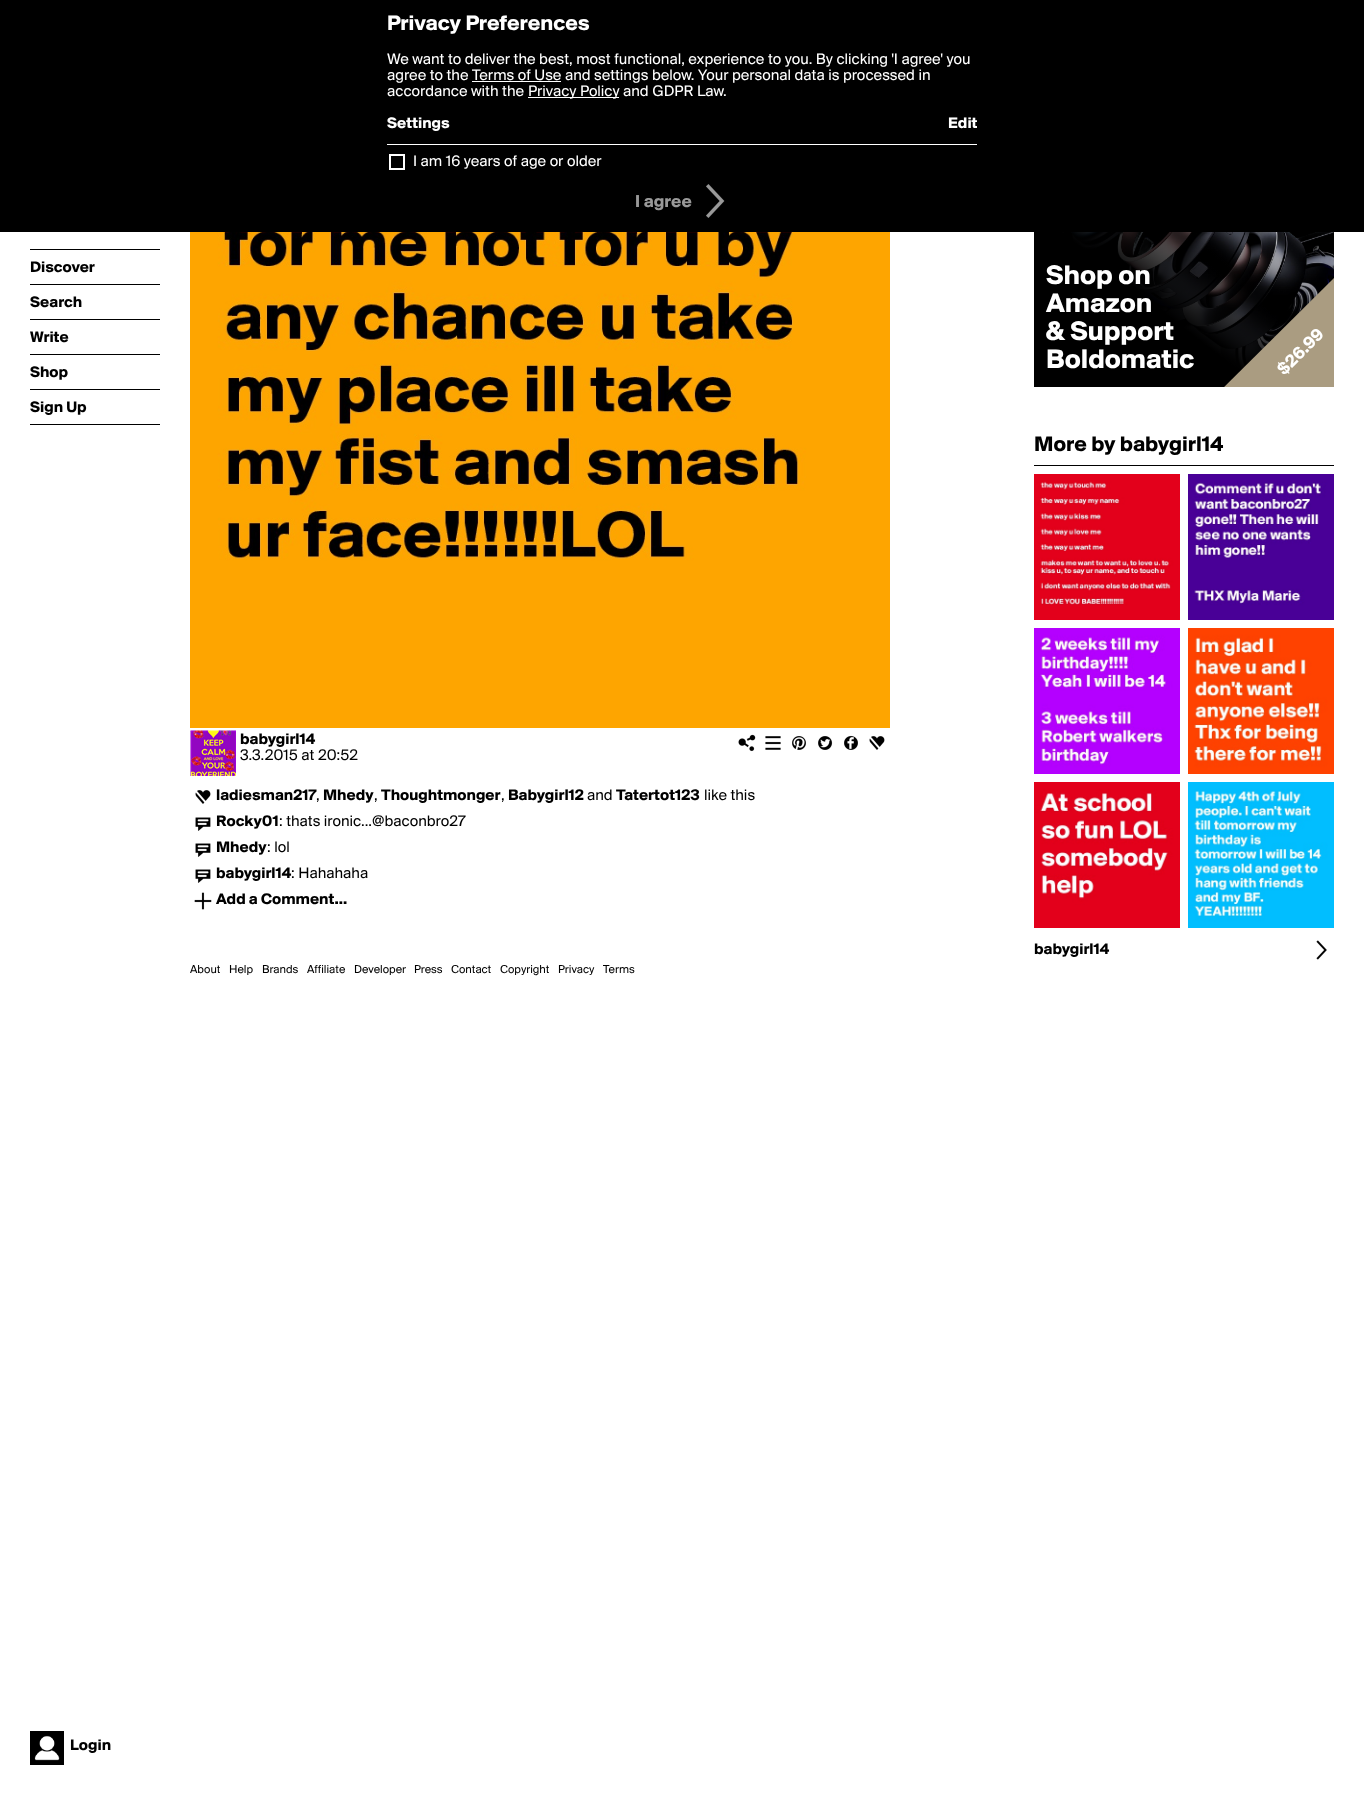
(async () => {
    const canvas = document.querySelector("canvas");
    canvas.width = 1364;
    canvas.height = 1795;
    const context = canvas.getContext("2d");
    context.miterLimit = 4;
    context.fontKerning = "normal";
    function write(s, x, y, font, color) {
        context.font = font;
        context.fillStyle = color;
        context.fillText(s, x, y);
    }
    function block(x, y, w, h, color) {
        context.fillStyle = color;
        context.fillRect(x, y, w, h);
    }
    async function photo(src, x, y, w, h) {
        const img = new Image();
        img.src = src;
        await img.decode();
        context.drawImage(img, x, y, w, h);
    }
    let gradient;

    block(0, 0, 1364, 1795, "rgb(255, 255, 255)");
    block(0, 0, 1364, 232, "rgb(0, 0, 0)");
    write("Privacy Preferences", 387, 30, "bold 22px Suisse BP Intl", "rgb(255, 255, 255)");
    write("We want to deliver the best, most functional, experience to you. By clicking 'I agree' you", 387, 64, "16px Suisse BP Intl", "rgb(255, 255, 255)");
    write("agree to the Terms of Use and settings below. Your personal data is processed in", 387, 80, "16px Suisse BP Intl", "rgb(255, 255, 255)");
    block(472, 81, 89, 1, "rgb(255, 255, 255)");
    write("accordance with the", 387, 96, "16px Suisse BP Intl", "rgb(255, 255, 255)");
    block(528, 97, 91, 1, "rgb(255, 255, 255)");
    write("Privacy Policy and GDPR Law.", 528, 96, "16px Suisse BP Intl", "rgb(255, 255, 255)");
    write("Settings", 387, 128, "bold 16px Suisse BP Intl", "rgb(255, 255, 255)");
    write("Edit", 948, 128, "bold 16px Suisse BP Intl", "rgb(255, 255, 255)");
    block(387, 144, 590, 1, "rgb(255, 255, 255)");
    context.strokeStyle = "rgb(255, 255, 255)";
    context.lineWidth = 2;
    context.strokeRect(390, 155, 14, 14);
    write("I am 16 years of age or older", 413, 166, "16px Suisse BP Intl", "rgb(255, 255, 255)");
    write("I agree", 635, 207, "bold 18px Suisse BP Intl", "rgb(153, 153, 153)");
    await photo("media/1.png", 706, 184, 19, 34);
    block(30, 249, 130, 1, "rgb(0, 0, 0)");
    block(30, 284, 130, 1, "rgb(0, 0, 0)");
    write("Discover", 30, 272, "bold 16px Suisse BP Intl", "rgb(0, 0, 0)");
    block(30, 319, 130, 1, "rgb(0, 0, 0)");
    write("Search", 30, 307, "bold 16px Suisse BP Intl", "rgb(0, 0, 0)");
    block(30, 354, 130, 1, "rgb(0, 0, 0)");
    write("Write", 30, 342, "bold 16px Suisse BP Intl", "rgb(0, 0, 0)");
    block(30, 389, 130, 1, "rgb(0, 0, 0)");
    write("Shop", 30, 377, "bold 16px Suisse BP Intl", "rgb(0, 0, 0)");
    block(30, 424, 130, 1, "rgb(0, 0, 0)");
    write("Sign Up", 30, 412, "bold 16px Suisse BP Intl", "rgb(0, 0, 0)");
    await photo("media/2.png", 30, 1731, 34, 34);
    write("Login", 70, 1750, "bold 16px Suisse BP Intl", "rgb(0, 0, 0)");
    await photo("media/3.png", 190, 232, 700, 496);
    await photo("media/4.png", 190, 730, 46, 46);
    write("babygirl14", 240, 744, "bold 16px Suisse BP Intl", "rgb(0, 0, 0)");
    write("3.3.2015 at 20:52", 240, 760, "16px Suisse BP Intl", "rgb(0, 0, 0)");
    await photo("media/5.png", 738, 734, 18, 18);
    await photo("media/6.png", 765, 736, 16, 14);
    await photo("media/7.png", 792, 736, 14, 14);
    await photo("media/8.png", 818, 736, 15, 14);
    await photo("media/9.png", 844, 735, 14, 15);
    await photo("media/10.png", 869, 736, 16, 14);
    await photo("media/10.png", 195, 790, 16, 14);
    write("ladiesman217", 216, 800, "bold 16px Suisse BP Intl", "rgb(0, 0, 0)");
    write(",", 316, 800, "16px Suisse BP Intl", "rgb(0, 0, 0)");
    write("Mhedy", 323, 800, "bold 16px Suisse BP Intl", "rgb(0, 0, 0)");
    write(",", 374, 800, "16px Suisse BP Intl", "rgb(0, 0, 0)");
    write("Thoughtmonger", 381, 800, "bold 16px Suisse BP Intl", "rgb(0, 0, 0)");
    write(",", 501, 800, "16px Suisse BP Intl", "rgb(0, 0, 0)");
    write("Babygirl12", 508, 800, "bold 16px Suisse BP Intl", "rgb(0, 0, 0)");
    write("and", 587, 800, "16px Suisse BP Intl", "rgb(0, 0, 0)");
    write("Tatertot123", 616, 800, "bold 16px Suisse BP Intl", "rgb(0, 0, 0)");
    write("like this", 704, 800, "16px Suisse BP Intl", "rgb(0, 0, 0)");
    await photo("media/11.png", 195, 817, 16, 14);
    write("Rocky01", 216, 826, "bold 16px Suisse BP Intl", "rgb(0, 0, 0)");
    write(": thats ironic...@baconbro27", 279, 826, "16px Suisse BP Intl", "rgb(0, 0, 0)");
    await photo("media/11.png", 195, 843, 16, 14);
    write("Mhedy", 216, 852, "bold 16px Suisse BP Intl", "rgb(0, 0, 0)");
    write(": lol", 267, 852, "16px Suisse BP Intl", "rgb(0, 0, 0)");
    await photo("media/11.png", 195, 869, 16, 14);
    write("babygirl14", 216, 878, "bold 16px Suisse BP Intl", "rgb(0, 0, 0)");
    write(": Hahahaha", 291, 878, "16px Suisse BP Intl", "rgb(0, 0, 0)");
    await photo("media/12.png", 194, 892, 18, 18);
    write("Add a Comment...", 216, 904, "bold 16px Suisse BP Intl", "rgb(0, 0, 0)");
    block(1064, 232, 270, 139, "rgb(0, 0, 0)");
    await photo("media/13.png", 1071, 232, 263, 139);
    gradient = context.createLinearGradient(1314, 71, 1054, 403);
    gradient.addColorStop(0.29, "rgba(0, 0, 0, 0)");
    gradient.addColorStop(0.67, "rgb(0, 0, 0)");
    context.fillStyle = gradient;
    context.fillRect(1034, 232, 300, 155);
    write("Shop on", 1046, 284, "bold 28px Suisse BP Intl", "rgb(255, 255, 255)");
    write("Amazon", 1046, 312, "bold 28px Suisse BP Intl", "rgb(255, 255, 255)");
    write("& Support", 1046, 340, "bold 28px Suisse BP Intl", "rgb(255, 255, 255)");
    write("Boldomatic", 1046, 368, "bold 28px Suisse BP Intl", "rgb(255, 255, 255)");
    context.save();
    context.beginPath();
    context.rect(1034, 87, 300, 300);
    context.clip();
    context.fillStyle = "rgb(170, 156, 129)";
    context.beginPath();
    context.moveTo(1210, 401);
    context.lineTo(1350, 262);
    context.lineTo(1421, 333);
    context.lineTo(1281, 472);
    context.closePath();
    context.fill();
    context.restore();
    context.font = "bold 18px Suisse BP Intl";
    context.save();
    context.translate(1284, 376);
    context.rotate(-45 * Math.PI / 180);
    context.fillText("$26.99", 0, 0);
    context.restore();
    block(1034, 465, 300, 1, "rgb(0, 0, 0)");
    write("More by babygirl14", 1034, 451, "bold 22px Suisse BP Intl", "rgb(0, 0, 0)");
    await photo("media/14.png", 1034, 474, 146, 146);
    await photo("media/15.png", 1188, 474, 146, 146);
    await photo("media/16.png", 1034, 628, 146, 146);
    await photo("media/17.png", 1188, 628, 146, 146);
    await photo("media/18.png", 1034, 782, 146, 146);
    await photo("media/19.png", 1188, 782, 146, 146);
    write("babygirl14", 1034, 954, "bold 16px Suisse BP Intl", "rgb(0, 0, 0)");
    await photo("media/20.png", 1316, 940, 11, 20);
    write("About", 190, 973, "12px Suisse BP Intl", "rgb(0, 0, 0)");
    write("Help", 229, 973, "12px Suisse BP Intl", "rgb(0, 0, 0)");
    write("Brands", 262, 973, "12px Suisse BP Intl", "rgb(0, 0, 0)");
    write("Affiliate", 307, 973, "12px Suisse BP Intl", "rgb(0, 0, 0)");
    write("Developer", 354, 973, "12px Suisse BP Intl", "rgb(0, 0, 0)");
    write("Press", 414, 973, "12px Suisse BP Intl", "rgb(0, 0, 0)");
    write("Contact", 451, 973, "12px Suisse BP Intl", "rgb(0, 0, 0)");
    write("Copyright", 500, 973, "12px Suisse BP Intl", "rgb(0, 0, 0)");
    write("Privacy", 558, 973, "12px Suisse BP Intl", "rgb(0, 0, 0)");
    write("Terms", 603, 973, "12px Suisse BP Intl", "rgb(0, 0, 0)");
})();
